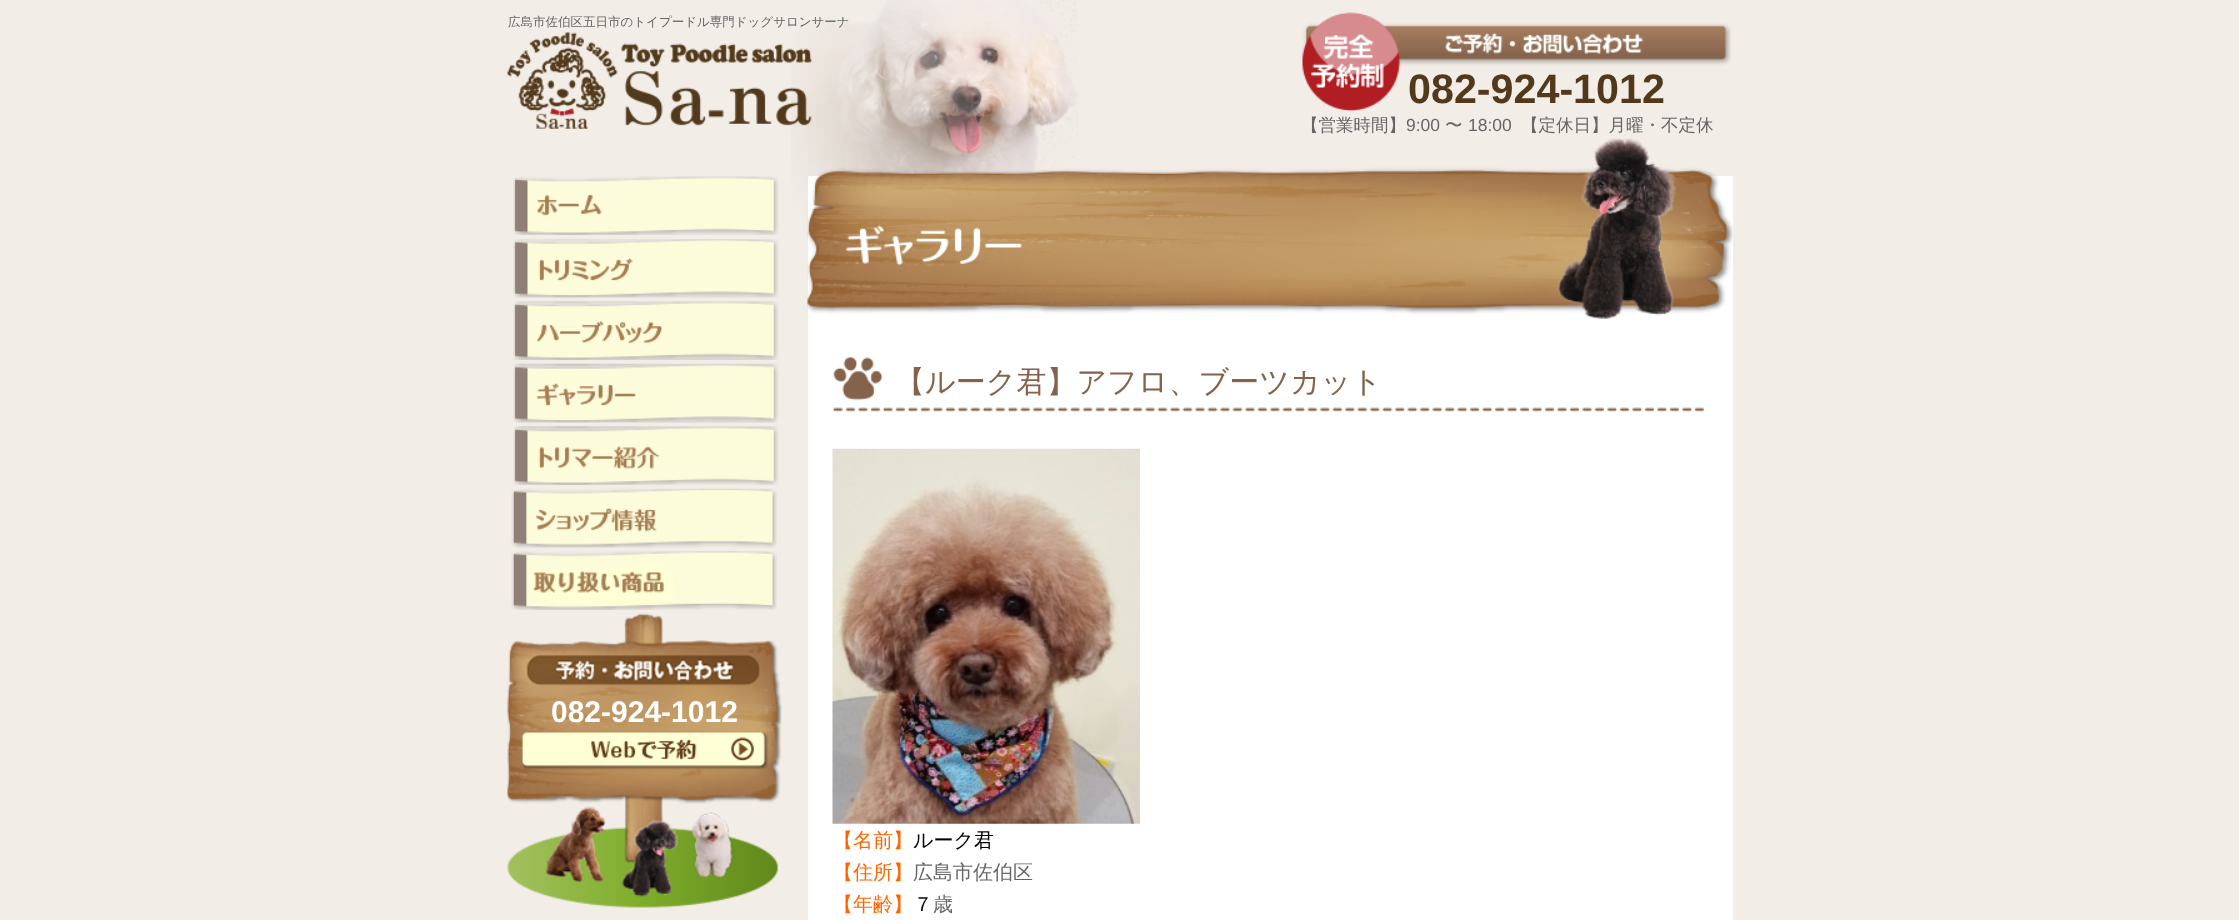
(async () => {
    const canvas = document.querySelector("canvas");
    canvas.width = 2239;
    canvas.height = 920;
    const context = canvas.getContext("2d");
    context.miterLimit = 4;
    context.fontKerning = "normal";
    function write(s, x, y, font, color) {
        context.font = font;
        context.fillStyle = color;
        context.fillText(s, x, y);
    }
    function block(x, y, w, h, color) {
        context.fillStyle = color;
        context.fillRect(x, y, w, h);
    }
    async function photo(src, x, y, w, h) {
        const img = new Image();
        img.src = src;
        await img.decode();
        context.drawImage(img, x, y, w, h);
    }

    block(0, 0, 2239, 920, "rgb(242, 237, 231)");
    await photo("media/1.png", 791, 0, 288, 318);
    write("広島市佐伯区五日市のトイプードル専門ドッグサロンサーナ", 508, 26, "500 12.5px WenQuanYi Zen Hei", "rgb(102, 102, 102)");
    await photo("media/2.png", 507, 32, 305, 97);
    await photo("media/3.png", 1302, 12, 429, 100);
    write("082-924-1012", 1408, 103, "bold 41.25px Liberation Sans", "rgb(82, 57, 27)");
    write("【営業時間】", 1301, 131, "500 17.5px WenQuanYi Zen Hei", "rgb(102, 102, 102)");
    write("9:00", 1406, 131, "17.5px Liberation Sans", "rgb(102, 102, 102)");
    write("〜", 1445, 131, "500 17.5px WenQuanYi Zen Hei", "rgb(102, 102, 102)");
    write("18:00", 1468, 131, "17.5px Liberation Sans", "rgb(102, 102, 102)");
    write("【定休日】月曜・不定休", 1521, 131, "500 17.5px WenQuanYi Zen Hei", "rgb(102, 102, 102)");
    await photo("media/4.png", 513, 176, 266, 59);
    await photo("media/5.png", 513, 239, 266, 59);
    await photo("media/6.png", 513, 301, 266, 59);
    await photo("media/7.png", 513, 363, 266, 60);
    await photo("media/8.png", 513, 426, 266, 59);
    await photo("media/9.png", 511, 488, 266, 60);
    await photo("media/10.png", 511, 551, 266, 59);
    await photo("media/11.png", 507, 613, 275, 295);
    write("082-924-1012", 551, 722, "bold 30px Liberation Sans", "rgb(255, 255, 255)");
    await photo("media/12.png", 521, 731, 248, 39);
    block(808, 176, 925, 744, "rgb(255, 255, 255)");
    await photo("media/13.png", 807, 138, 926, 181);
    await photo("media/14.png", 832, 357, 872, 55);
    write("【ルーク君】アフロ、ブーツカット", 895, 392, "500 30px WenQuanYi Zen Hei", "rgb(133, 99, 75)");
    await photo("media/15.png", 832, 448, 308, 376);
    write("【名前】", 833, 847, "500 20px WenQuanYi Zen Hei", "rgb(255, 102, 0)");
    write("ルーク君", 913, 847, "500 20px WenQuanYi Zen Hei", "rgb(0, 0, 0)");
    write("【住所】", 833, 879, "500 20px WenQuanYi Zen Hei", "rgb(255, 102, 0)");
    write("広島市佐伯区", 913, 879, "500 20px WenQuanYi Zen Hei", "rgb(102, 102, 102)");
    write("【年齢】", 833, 911, "500 20px WenQuanYi Zen Hei", "rgb(255, 102, 0)");
    write("７", 913, 911, "500 20px WenQuanYi Zen Hei", "rgb(0, 0, 0)");
    write("歳", 933, 911, "500 20px WenQuanYi Zen Hei", "rgb(102, 102, 102)");
})();
